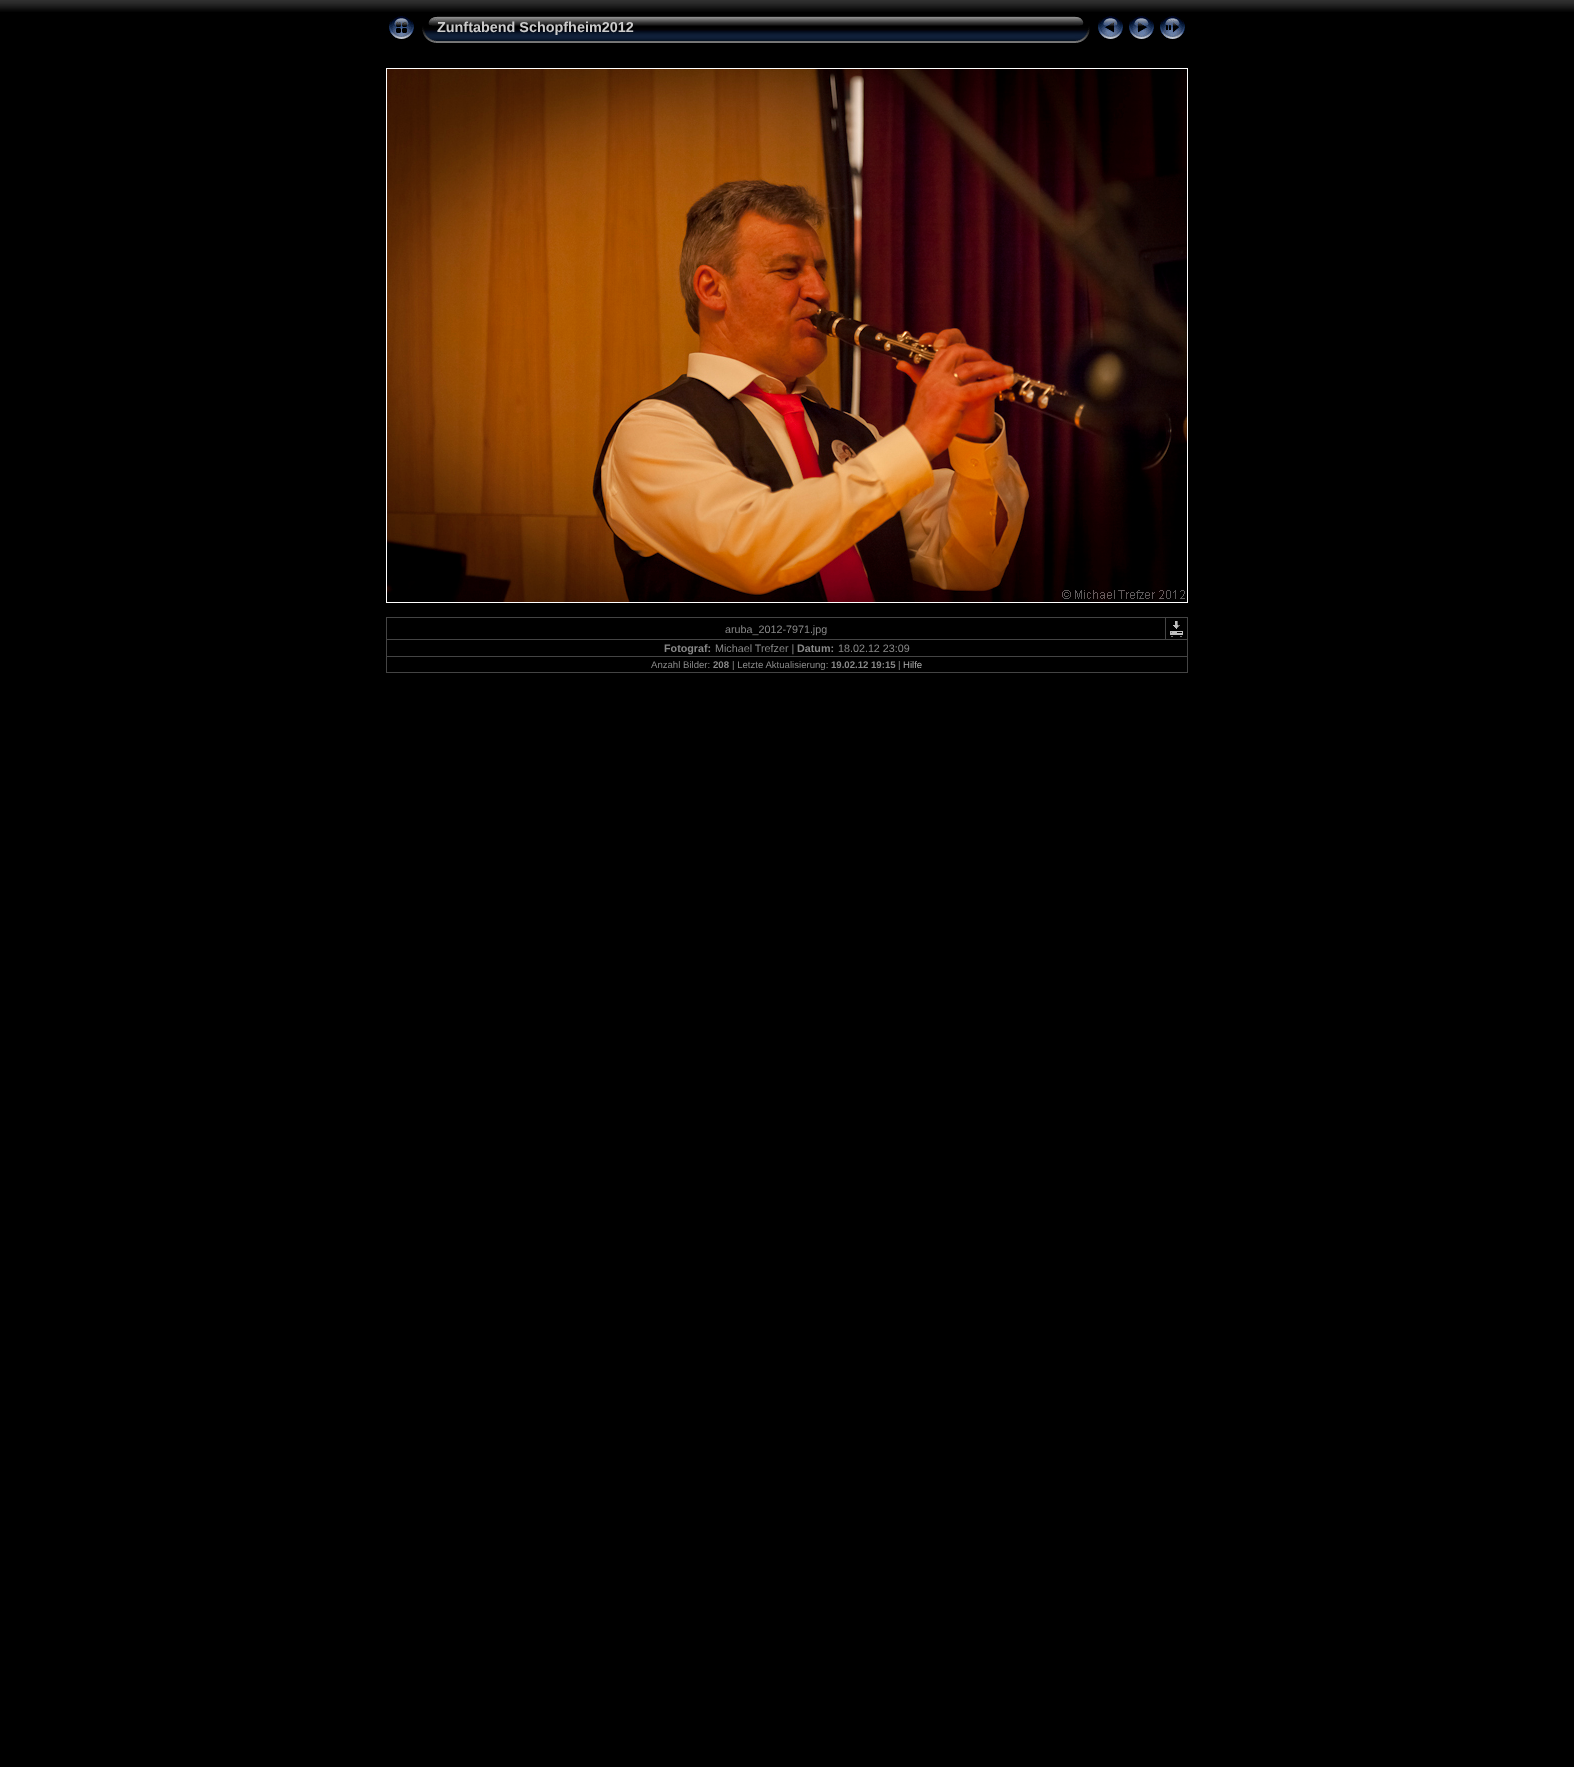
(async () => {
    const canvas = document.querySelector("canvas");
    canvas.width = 1574;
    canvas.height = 1767;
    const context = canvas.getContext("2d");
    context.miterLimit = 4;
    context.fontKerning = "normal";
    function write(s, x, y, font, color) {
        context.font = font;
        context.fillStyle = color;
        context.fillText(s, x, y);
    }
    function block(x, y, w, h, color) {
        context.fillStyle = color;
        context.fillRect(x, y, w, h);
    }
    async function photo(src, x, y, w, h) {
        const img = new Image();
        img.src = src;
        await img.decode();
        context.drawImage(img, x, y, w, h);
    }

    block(0, 0, 1574, 1767, "rgb(0, 0, 0)");
    await photo("media/1.png", 0, 0, 1574, 12);
    await photo("media/2.png", 389, 16, 25, 23);
    await photo("media/3.png", 422, 16, 15, 27);
    await photo("media/4.png", 437, 16, 638, 27);
    write("Zunftabend Schopfheim2012", 437, 32, "bold 14.4px Liberation Sans", "rgb(204, 204, 204)");
    await photo("media/5.png", 1075, 16, 15, 27);
    await photo("media/6.png", 1098, 16, 25, 23);
    await photo("media/7.png", 1129, 16, 25, 23);
    await photo("media/8.png", 1160, 16, 25, 23);
    context.strokeStyle = "rgb(255, 255, 255)";
    context.strokeRect(386.5, 68.5, 801, 534);
    await photo("media/9.png", 387, 69, 800, 533);
    block(386, 617, 802, 1, "rgb(68, 68, 68)");
    block(1187, 617, 1, 56, "rgb(68, 68, 68)");
    block(386, 672, 802, 1, "rgb(68, 68, 68)");
    block(386, 617, 1, 56, "rgb(68, 68, 68)");
    write("aruba_2012-7971.jpg", 725, 633, "10.75px Liberation Sans", "rgb(136, 136, 136)");
    block(386, 639, 802, 1, "rgb(68, 68, 68)");
    block(1165, 617, 1, 23, "rgb(68, 68, 68)");
    await photo("media/10.png", 1170, 621, 13, 16);
    write("Fotograf:", 664, 652, "bold 10.75px Liberation Sans", "rgb(136, 136, 136)");
    write("Michael Trefzer |", 715, 652, "10.75px Liberation Sans", "rgb(136, 136, 136)");
    write("Datum:", 797, 652, "bold 10.75px Liberation Sans", "rgb(136, 136, 136)");
    write("18.02.12 23:09", 838, 652, "10.75px Liberation Sans", "rgb(136, 136, 136)");
    block(386, 656, 802, 1, "rgb(68, 68, 68)");
    write("Anzahl Bilder:", 651, 668, "9.6px Liberation Sans", "rgb(136, 136, 136)");
    write("208", 713, 668, "bold 9.6px Liberation Sans", "rgb(136, 136, 136)");
    write("| Letzte Aktualisierung:", 732, 668, "9.6px Liberation Sans", "rgb(136, 136, 136)");
    write("19.02.12 19:15", 831, 668, "bold 9.6px Liberation Sans", "rgb(136, 136, 136)");
    write("|", 898, 668, "9.6px Liberation Sans", "rgb(136, 136, 136)");
    write("Hilfe", 903, 668, "9.6px Liberation Sans", "rgb(170, 170, 170)");
})();
